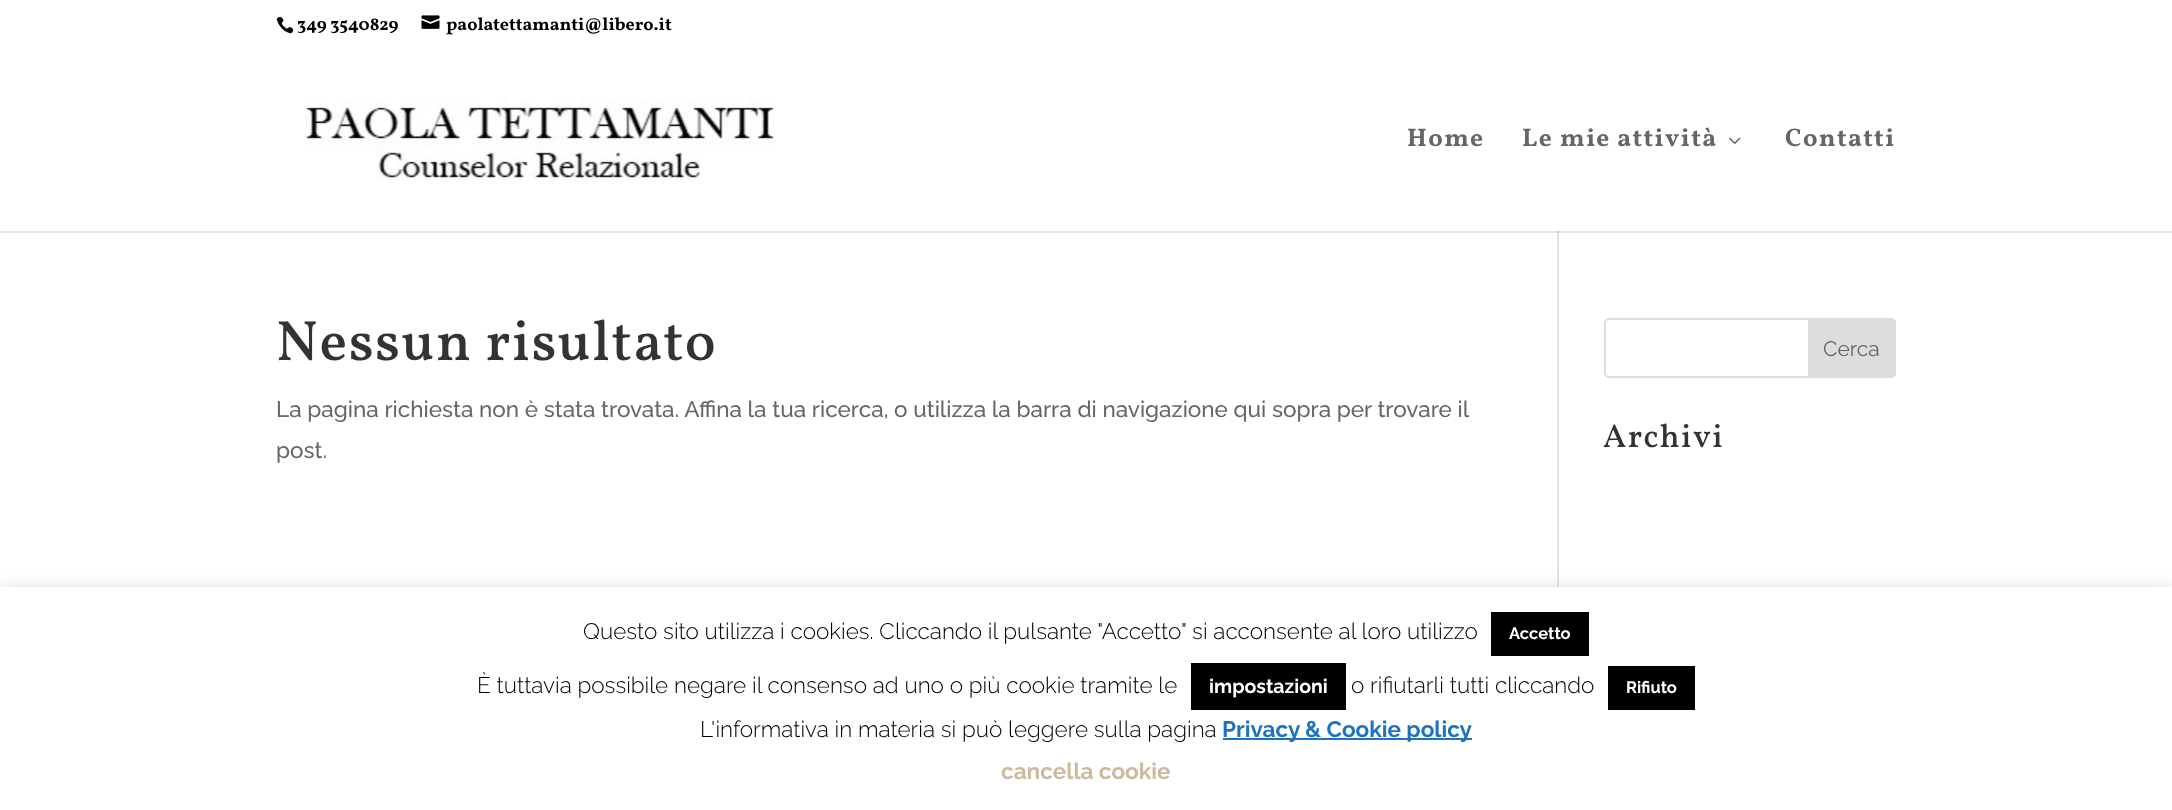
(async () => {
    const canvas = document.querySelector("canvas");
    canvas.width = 2172;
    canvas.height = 810;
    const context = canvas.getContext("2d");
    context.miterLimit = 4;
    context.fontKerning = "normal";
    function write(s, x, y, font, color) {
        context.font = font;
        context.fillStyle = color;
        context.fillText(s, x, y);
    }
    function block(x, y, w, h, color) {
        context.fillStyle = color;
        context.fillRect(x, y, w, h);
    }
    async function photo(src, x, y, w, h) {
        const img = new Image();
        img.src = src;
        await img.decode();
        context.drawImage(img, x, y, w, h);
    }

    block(0, 0, 2172, 810, "rgb(255, 255, 255)");
    block(0, 231, 2172, 2, "rgb(230, 230, 230)");
    await photo("media/1.png", 276, 16, 18, 18);
    write("349 3540829", 297, 30, "bold 18px Vollkorn", "rgb(0, 0, 0)");
    await photo("media/2.png", 421, 15, 19, 14);
    write("paolatettamanti@libero.it", 446, 30, "bold 18px Vollkorn", "rgb(0, 0, 0)");
    await photo("media/3.png", 304, 98, 471, 83);
    context.letterSpacing = "1.5px";
    write("Home", 1407, 146, "bold 25.5px Vollkorn", "rgb(102, 102, 102)");
    write("Le mie attività", 1522, 146, "bold 25.5px Vollkorn", "rgb(102, 102, 102)");
    await photo("media/4.png", 1729, 137, 12, 7);
    write("Contatti", 1785, 146, "bold 25.5px Vollkorn", "rgb(102, 102, 102)");
    block(1557, 231, 2, 356, "rgb(226, 226, 226)");
    block(1557, 231, 2, 2, "rgb(203, 203, 203)");
    write("Nessun risultato", 276, 360, "500 57px Vollkorn", "rgb(51, 51, 51)");
    context.letterSpacing = "0px";
    write("La pagina richiesta non è stata trovata. Affina la tua ricerca, o utilizza la barra di navigazione qui sopra per trovare il", 276, 417, "500 22.5px Raleway", "rgb(102, 102, 102)");
    write("post.", 276, 458, "500 22.5px Raleway", "rgb(102, 102, 102)");
    context.beginPath();
    context.roundRect(1605, 319, 290, 58, 4);
    context.strokeStyle = "rgb(221, 221, 221)";
    context.lineWidth = 2;
    context.stroke();
    context.fillStyle = "rgb(221, 221, 221)";
    context.beginPath();
    context.roundRect(1809, 319, 86, 58, [0, 4, 4, 0]);
    context.fill();
    context.stroke();
    write("Cerca", 1823, 356, "21px Raleway", "rgb(102, 102, 102)");
    context.letterSpacing = "1.5px";
    write("Archivi", 1603, 447, "500 33px Vollkorn", "rgb(51, 51, 51)");
    context.fillStyle = "rgba(172, 171, 171, 0.3)";
    context.filter = "blur(7.5px)";
    context.beginPath();
    context.rect(0, 585, 2172, 224);
    context.fill();
    context.filter = "none";
    block(0, 587, 2172, 223, "rgb(255, 255, 255)");
    context.letterSpacing = "0px";
    write("Questo sito utilizza i cookies. Cliccando il pulsante \"Accetto\" si acconsente al loro utilizzo", 583, 639, "300 22.5px Raleway", "rgb(0, 0, 0)");
    block(1491, 612, 98, 44, "rgb(0, 0, 0)");
    write("Accetto", 1509, 639, "bold 16.5px Raleway", "rgb(255, 255, 255)");
    write("È tuttavia possibile negare il consenso ad uno o più cookie tramite le", 477, 693, "300 22.5px Raleway", "rgb(0, 0, 0)");
    block(1191, 663, 155, 47, "rgb(0, 0, 0)");
    write("impostazioni", 1209, 693, "bold 19.5px Raleway", "rgb(255, 255, 255)");
    write("o rifiutarli tutti cliccando", 1351, 693, "300 22.5px Raleway", "rgb(0, 0, 0)");
    block(1608, 666, 87, 44, "rgb(0, 0, 0)");
    write("Rifiuto", 1626, 693, "bold 16.5px Raleway", "rgb(255, 255, 255)");
    write("L'informativa in materia si può leggere sulla pagina", 700, 737, "300 22.5px Raleway", "rgb(0, 0, 0)");
    block(1223, 738, 249, 2, "rgb(30, 115, 190)");
    write("Privacy & Cookie policy", 1222, 737, "bold 22.5px Raleway", "rgb(30, 115, 190)");
    write("cancella cookie", 1001, 779, "bold 22.5px Raleway", "rgb(203, 186, 156)");
})();
